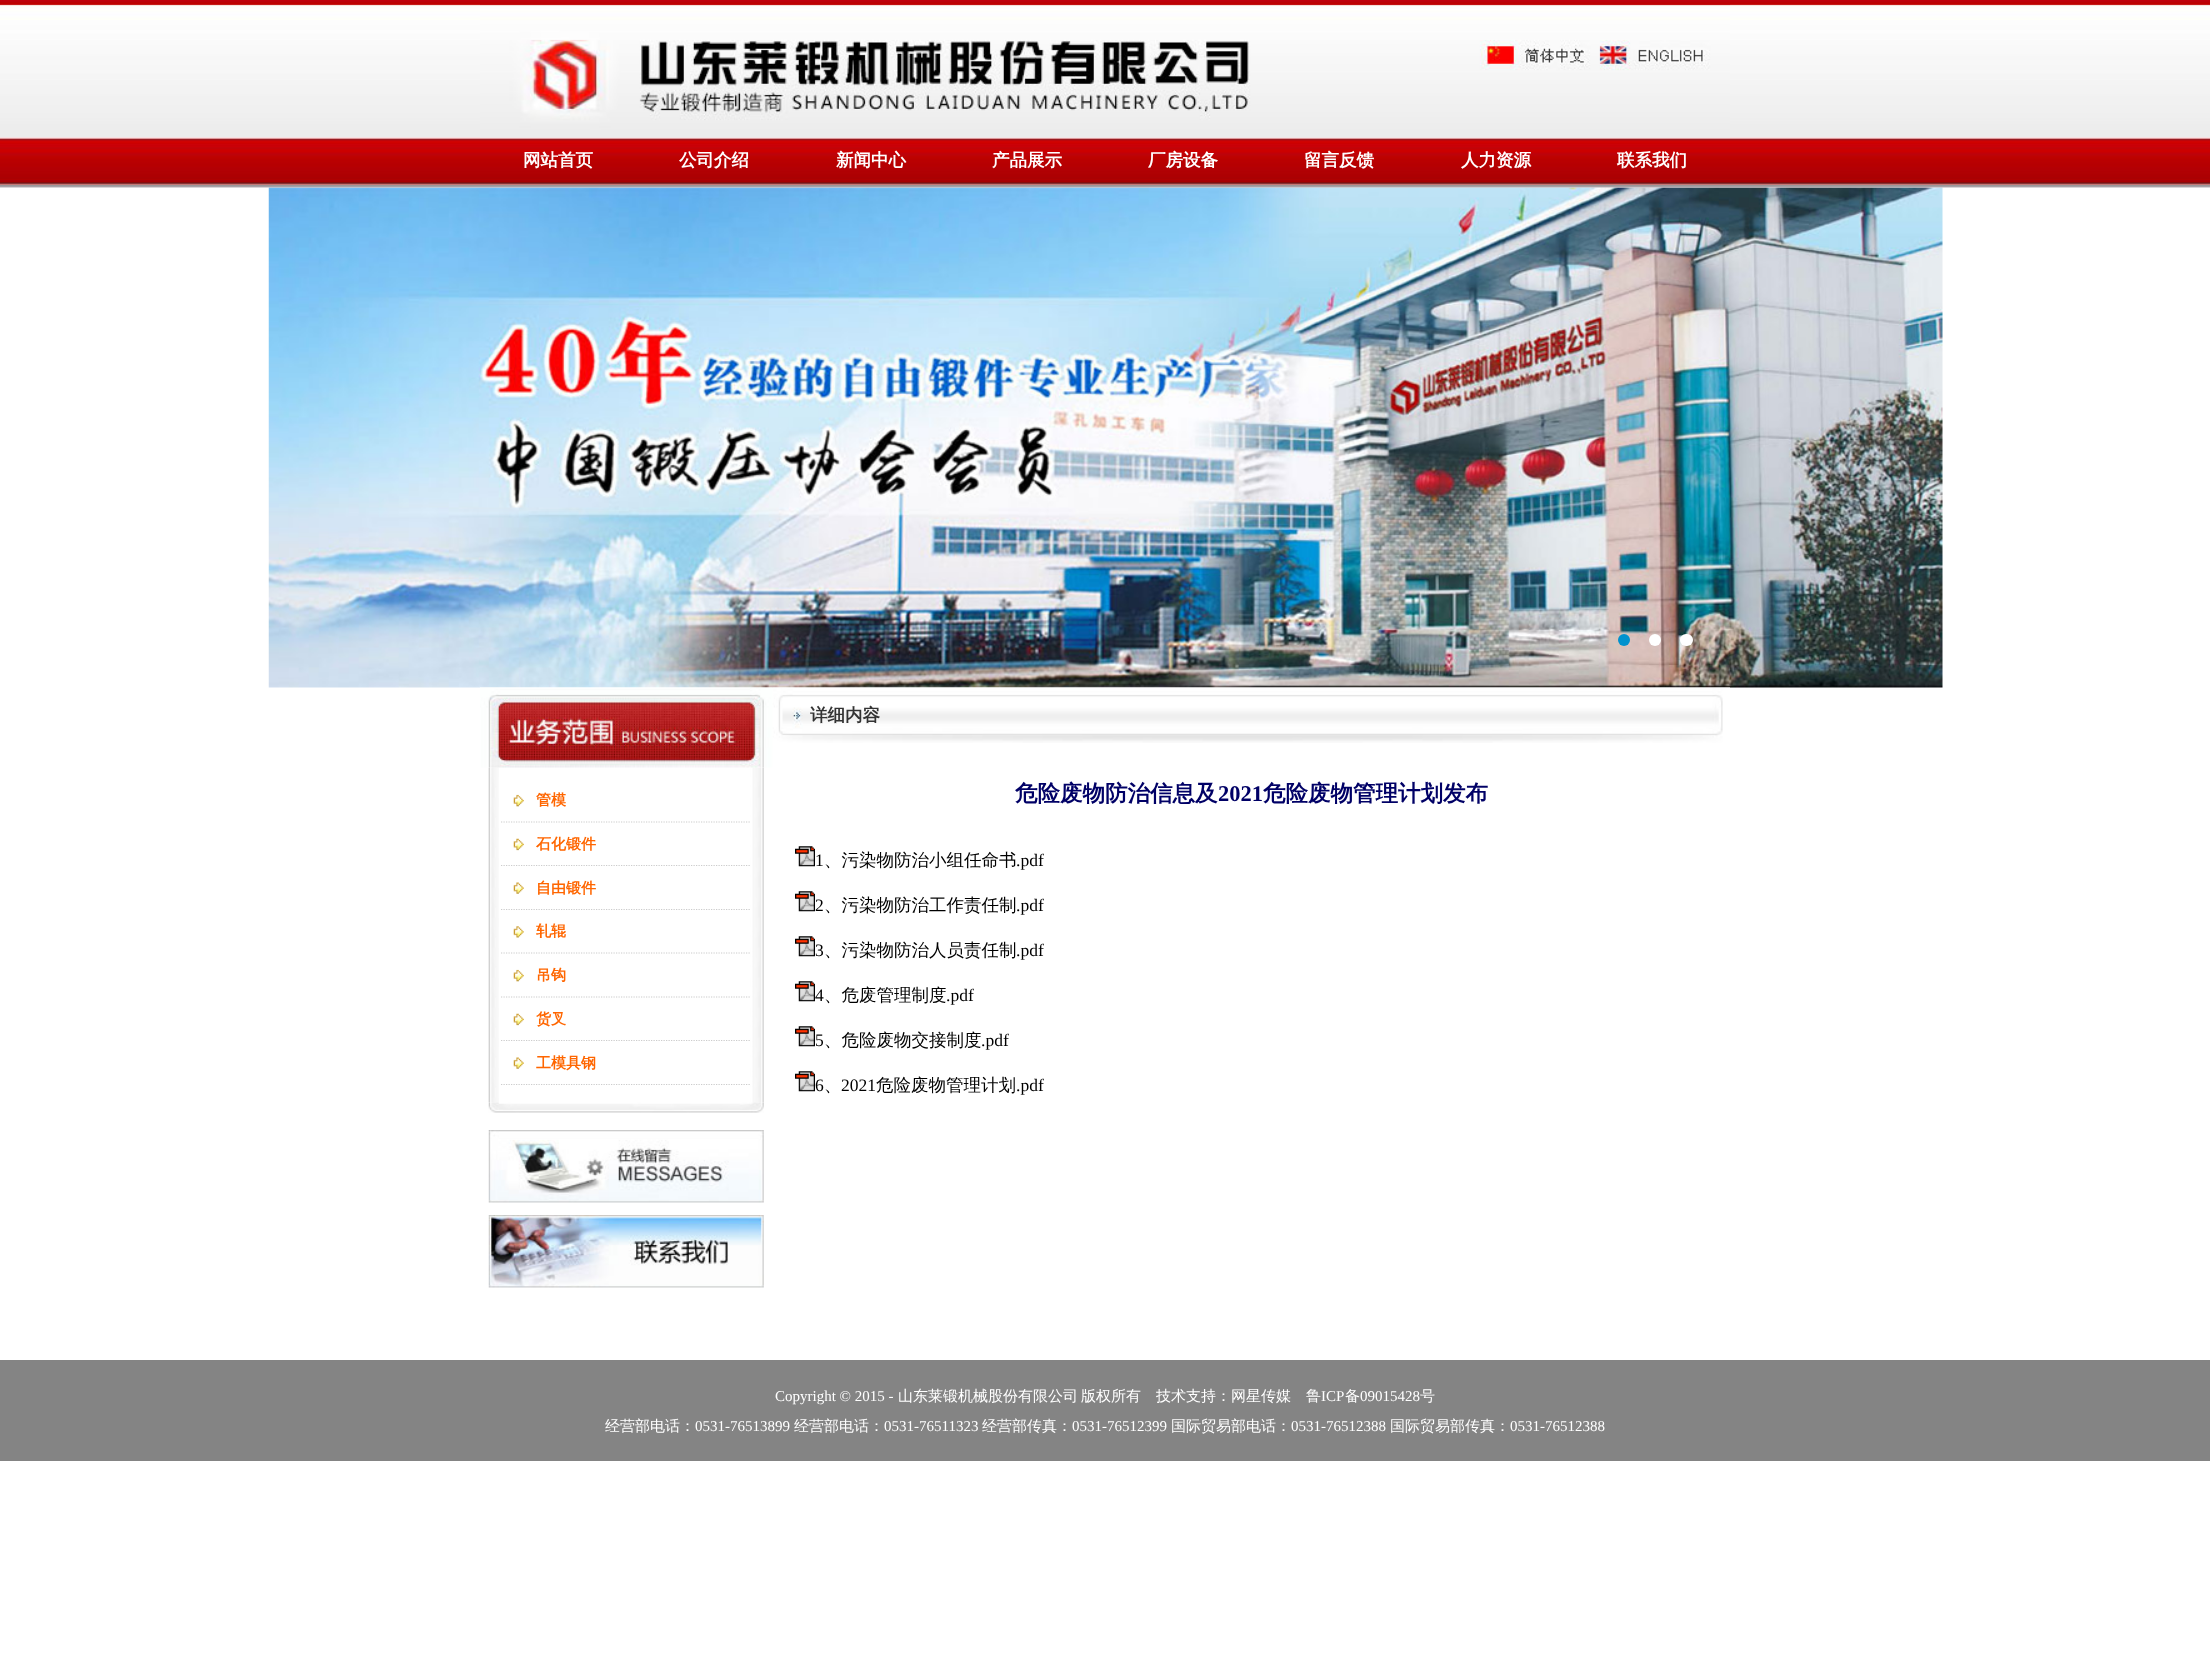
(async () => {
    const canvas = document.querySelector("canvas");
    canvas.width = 2210;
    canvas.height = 1668;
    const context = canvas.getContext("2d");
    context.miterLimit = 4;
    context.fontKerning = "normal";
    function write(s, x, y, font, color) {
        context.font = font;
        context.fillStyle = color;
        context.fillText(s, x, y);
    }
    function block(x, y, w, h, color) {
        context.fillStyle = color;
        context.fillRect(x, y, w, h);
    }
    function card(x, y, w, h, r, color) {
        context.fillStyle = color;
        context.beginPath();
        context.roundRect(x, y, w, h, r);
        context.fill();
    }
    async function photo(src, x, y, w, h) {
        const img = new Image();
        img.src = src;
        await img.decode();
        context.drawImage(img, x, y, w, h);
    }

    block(0, 0, 2210, 1668, "rgb(255, 255, 255)");
    await photo("media/1.png", 0, 0, 2210, 138);
    await photo("media/4.png", 268, 187, 1675, 501);
    await photo("media/3.png", 0, 137, 2210, 51);
    await photo("media/2.png", 480, 4, 1250, 134);
    write("网站首页", 523, 166, "bold 17.5px WenQuanYi Zen Hei", "rgb(255, 255, 255)");
    write("公司介绍", 679, 166, "bold 17.5px WenQuanYi Zen Hei", "rgb(255, 255, 255)");
    write("新闻中心", 836, 166, "bold 17.5px WenQuanYi Zen Hei", "rgb(255, 255, 255)");
    write("产品展示", 992, 166, "bold 17.5px WenQuanYi Zen Hei", "rgb(255, 255, 255)");
    write("厂房设备", 1148, 166, "bold 17.5px WenQuanYi Zen Hei", "rgb(255, 255, 255)");
    write("留言反馈", 1304, 166, "bold 17.5px WenQuanYi Zen Hei", "rgb(255, 255, 255)");
    write("人力资源", 1461, 166, "bold 17.5px WenQuanYi Zen Hei", "rgb(255, 255, 255)");
    write("联系我们", 1617, 166, "bold 17.5px WenQuanYi Zen Hei", "rgb(255, 255, 255)");
    context.fillStyle = "rgb(0, 146, 206)";
    context.beginPath();
    context.arc(1624, 640, 6, 0, Math.PI * 2);
    context.fill();
    context.fillStyle = "rgb(255, 255, 255)";
    context.beginPath();
    context.arc(1655, 640, 6, 0, Math.PI * 2);
    context.fill();
    card(1680, 634, 13, 12, 6, "rgb(255, 255, 255)");
    await photo("media/6.png", 488, 767, 276, 336);
    await photo("media/14.png", 772, 687, 958, 56);
    await photo("media/5.png", 480, 687, 293, 81);
    context.beginPath();
    context.moveTo(501, 822);
    context.lineTo(536, 822);
    context.strokeStyle = "rgb(204, 204, 204)";
    context.lineWidth = 1.2;
    context.setLineDash([1.25, 1.25]);
    context.stroke();
    await photo("media/7.png", 513, 794, 11, 13);
    context.beginPath();
    context.moveTo(536, 822);
    context.lineTo(751, 822);
    context.stroke();
    write("管模", 536, 805, "bold 15px WenQuanYi Zen Hei", "rgb(255, 102, 0)");
    context.beginPath();
    context.moveTo(501, 865.5);
    context.lineTo(536, 865.5);
    context.stroke();
    await photo("media/8.png", 513, 838, 11, 13);
    context.beginPath();
    context.moveTo(536, 865.5);
    context.lineTo(751, 865.5);
    context.stroke();
    write("石化锻件", 536, 849, "bold 15px WenQuanYi Zen Hei", "rgb(255, 102, 0)");
    context.beginPath();
    context.moveTo(501, 909.5);
    context.lineTo(536, 909.5);
    context.stroke();
    await photo("media/9.png", 513, 882, 11, 12);
    context.beginPath();
    context.moveTo(536, 909.5);
    context.lineTo(751, 909.5);
    context.stroke();
    write("自由锻件", 536, 893, "bold 15px WenQuanYi Zen Hei", "rgb(255, 102, 0)");
    context.beginPath();
    context.moveTo(501, 953);
    context.lineTo(536, 953);
    context.stroke();
    await photo("media/10.png", 513, 926, 11, 12);
    context.beginPath();
    context.moveTo(536, 953);
    context.lineTo(751, 953);
    context.stroke();
    write("轧辊", 536, 936, "bold 15px WenQuanYi Zen Hei", "rgb(255, 102, 0)");
    context.beginPath();
    context.moveTo(501, 997);
    context.lineTo(536, 997);
    context.stroke();
    await photo("media/7.png", 513, 969, 11, 13);
    context.beginPath();
    context.moveTo(536, 997);
    context.lineTo(751, 997);
    context.stroke();
    write("吊钩", 536, 980, "bold 15px WenQuanYi Zen Hei", "rgb(255, 102, 0)");
    context.beginPath();
    context.moveTo(501, 1040.5);
    context.lineTo(536, 1040.5);
    context.stroke();
    await photo("media/8.png", 513, 1013, 11, 13);
    context.beginPath();
    context.moveTo(536, 1040.5);
    context.lineTo(751, 1040.5);
    context.stroke();
    write("货叉", 536, 1024, "bold 15px WenQuanYi Zen Hei", "rgb(255, 102, 0)");
    context.beginPath();
    context.moveTo(501, 1084.5);
    context.lineTo(536, 1084.5);
    context.stroke();
    await photo("media/9.png", 513, 1057, 11, 12);
    context.beginPath();
    context.moveTo(536, 1084.5);
    context.lineTo(751, 1084.5);
    context.stroke();
    write("工模具钢", 536, 1068, "bold 15px WenQuanYi Zen Hei", "rgb(255, 102, 0)");
    await photo("media/11.png", 488, 1102, 276, 11);
    await photo("media/12.png", 488, 1130, 276, 73);
    await photo("media/13.png", 488, 1215, 276, 73);
    write("详细内容", 810, 721, "bold 17.5px WenQuanYi Zen Hei", "rgb(51, 51, 51)");
    write("危险废物防治信息及", 1015, 801, "bold 22.5px WenQuanYi Zen Hei", "rgb(0, 0, 102)");
    write("2021", 1218, 801, "bold 22.5px Liberation Serif", "rgb(0, 0, 102)");
    write("危险废物管理计划发布", 1263, 801, "bold 22.5px WenQuanYi Zen Hei", "rgb(0, 0, 102)");
    await photo("media/15.png", 795, 846, 20, 21);
    write("1", 815, 866, "17.5px Liberation Serif", "rgb(0, 0, 0)");
    write("、污染物防治小组任命书", 824, 866, "500 17.5px WenQuanYi Zen Hei", "rgb(0, 0, 0)");
    write(".pdf", 1016, 866, "17.5px Liberation Serif", "rgb(0, 0, 0)");
    await photo("media/15.png", 795, 891, 20, 21);
    write("2", 815, 911, "17.5px Liberation Serif", "rgb(0, 0, 0)");
    write("、污染物防治工作责任制", 824, 911, "500 17.5px WenQuanYi Zen Hei", "rgb(0, 0, 0)");
    write(".pdf", 1016, 911, "17.5px Liberation Serif", "rgb(0, 0, 0)");
    await photo("media/15.png", 795, 936, 20, 21);
    write("3", 815, 956, "17.5px Liberation Serif", "rgb(0, 0, 0)");
    write("、污染物防治人员责任制", 824, 956, "500 17.5px WenQuanYi Zen Hei", "rgb(0, 0, 0)");
    write(".pdf", 1016, 956, "17.5px Liberation Serif", "rgb(0, 0, 0)");
    await photo("media/15.png", 795, 981, 20, 21);
    write("4", 815, 1001, "17.5px Liberation Serif", "rgb(0, 0, 0)");
    write("、危废管理制度", 824, 1001, "500 17.5px WenQuanYi Zen Hei", "rgb(0, 0, 0)");
    write(".pdf", 946, 1001, "17.5px Liberation Serif", "rgb(0, 0, 0)");
    await photo("media/15.png", 795, 1026, 20, 21);
    write("5", 815, 1046, "17.5px Liberation Serif", "rgb(0, 0, 0)");
    write("、危险废物交接制度", 824, 1046, "500 17.5px WenQuanYi Zen Hei", "rgb(0, 0, 0)");
    write(".pdf", 981, 1046, "17.5px Liberation Serif", "rgb(0, 0, 0)");
    await photo("media/15.png", 795, 1071, 20, 21);
    write("6", 815, 1091, "17.5px Liberation Serif", "rgb(0, 0, 0)");
    write("、", 824, 1091, "500 17.5px WenQuanYi Zen Hei", "rgb(0, 0, 0)");
    write("2021", 841, 1091, "17.5px Liberation Serif", "rgb(0, 0, 0)");
    write("危险废物管理计划", 876, 1091, "500 17.5px WenQuanYi Zen Hei", "rgb(0, 0, 0)");
    write(".pdf", 1016, 1091, "17.5px Liberation Serif", "rgb(0, 0, 0)");
    block(0, 1360, 2210, 101, "rgb(132, 132, 132)");
    write("Copyright © 2015 -", 775, 1401, "15px Liberation Serif", "rgb(255, 255, 255)");
    write("山东莱锻机械股份有限公司", 898, 1401, "500 15px WenQuanYi Zen Hei", "rgb(255, 255, 255)");
    write("版权所有　技术支持：网星传媒　鲁", 1081, 1401, "500 15px WenQuanYi Zen Hei", "rgb(255, 255, 255)");
    write("ICP", 1321, 1401, "15px Liberation Serif", "rgb(255, 255, 255)");
    write("备", 1345, 1401, "500 15px WenQuanYi Zen Hei", "rgb(255, 255, 255)");
    write("09015428", 1360, 1401, "15px Liberation Serif", "rgb(255, 255, 255)");
    write("号", 1420, 1401, "500 15px WenQuanYi Zen Hei", "rgb(255, 255, 255)");
    write("经营部电话：", 605, 1431, "500 15px WenQuanYi Zen Hei", "rgb(255, 255, 255)");
    write("0531-76513899", 695, 1431, "15px Liberation Serif", "rgb(255, 255, 255)");
    write("经营部电话：", 794, 1431, "500 15px WenQuanYi Zen Hei", "rgb(255, 255, 255)");
    write("0531-76511323", 884, 1431, "15px Liberation Serif", "rgb(255, 255, 255)");
    write("经营部传真：", 982, 1431, "500 15px WenQuanYi Zen Hei", "rgb(255, 255, 255)");
    write("0531-76512399", 1072, 1431, "15px Liberation Serif", "rgb(255, 255, 255)");
    write("国际贸易部电话：", 1171, 1431, "500 15px WenQuanYi Zen Hei", "rgb(255, 255, 255)");
    write("0531-76512388", 1291, 1431, "15px Liberation Serif", "rgb(255, 255, 255)");
    write("国际贸易部传真：", 1390, 1431, "500 15px WenQuanYi Zen Hei", "rgb(255, 255, 255)");
    write("0531-76512388", 1510, 1431, "15px Liberation Serif", "rgb(255, 255, 255)");
})();
